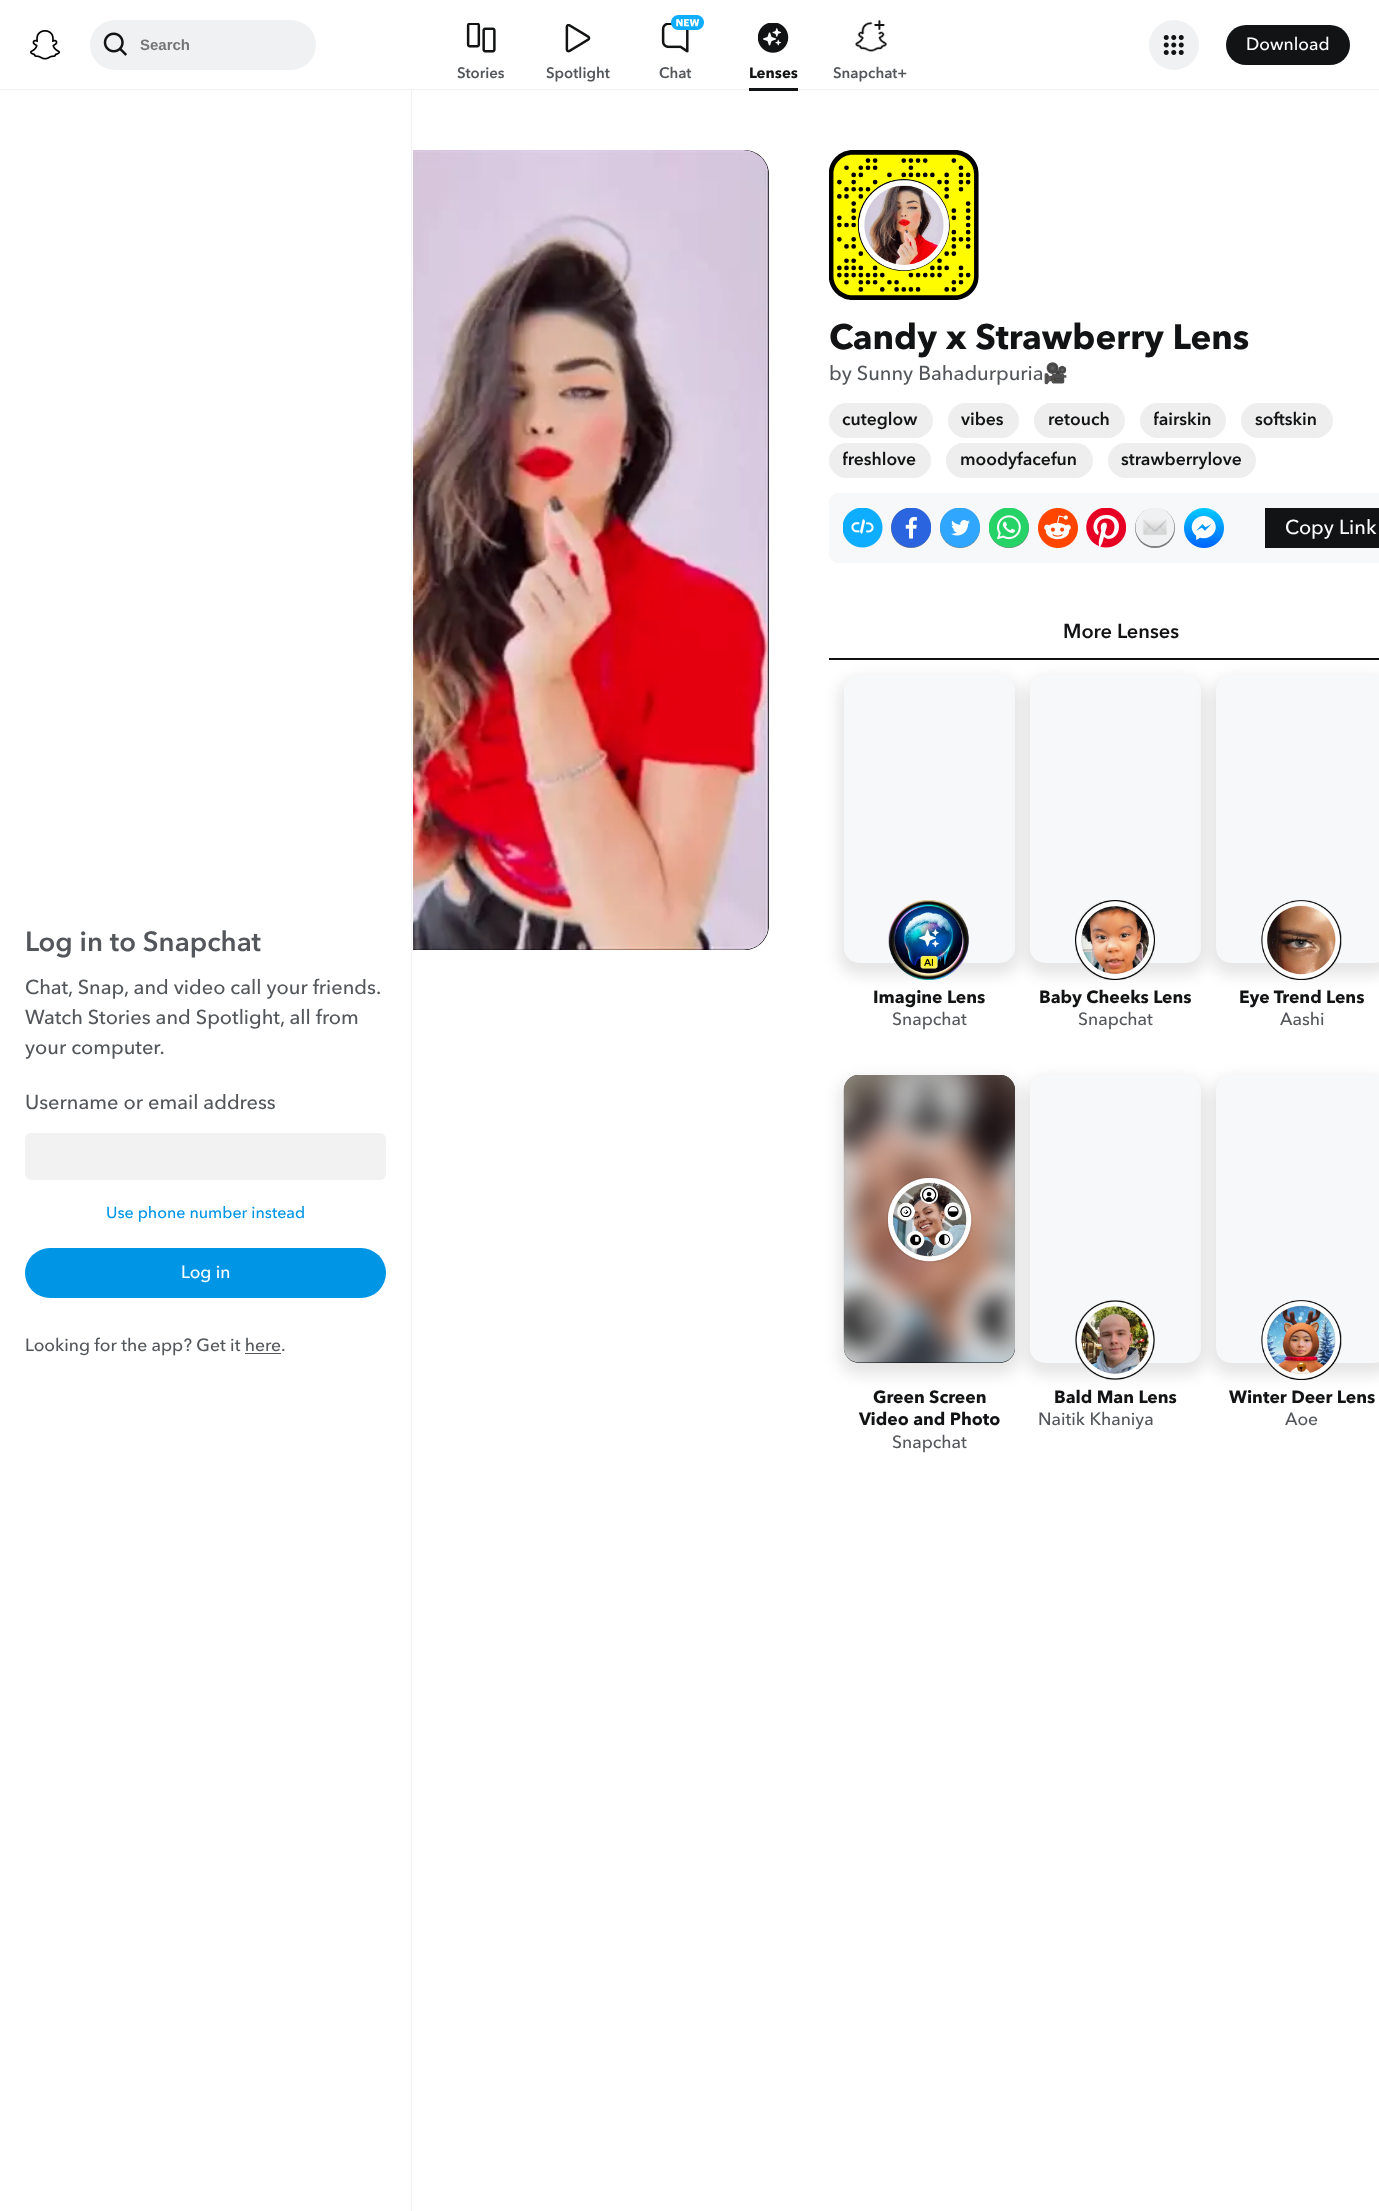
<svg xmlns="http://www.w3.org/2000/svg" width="1379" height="2211">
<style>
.a{font:bold 15px Liberation Sans;fill:#757575}
.b{font:500 17.5px Avenir Next;fill:#fff}
.c{font:600 15px Avenir Next;fill:#53575b}
.d{font:bold 15px Avenir Next;fill:#121314}
.e{font:bold 35px Avenir Next;fill:#121314}
.f{font:500 20px Avenir Next;fill:#53575b}
.g{font:20px Noto Color Emoji;fill:#53575b}
.h{font:600 17.5px Avenir Next;fill:#121314}
.i{font:500 20px Avenir Next;fill:#fff}
.j{font:600 20px Avenir Next;fill:#121314}
.k{font:bold 17.5px Avenir Next;fill:#121314}
.l{font:500 17.5px Avenir Next;fill:#53575b}
.m{font:600 27.5px Avenir Next;fill:#53575b}
.n{font:500 16px Avenir Next;fill:#0096e5}
</style>
<defs>
<clipPath id="clip1"><rect x="1216" y="675" width="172" height="288" rx="15"/></clipPath>
<clipPath id="clip2"><rect x="1216" y="1075" width="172" height="288" rx="15"/></clipPath>
<clipPath id="clip3"><path d="M1154 408h57v25H1154z"/></clipPath>
<clipPath id="clip4"><path d="M843 448h73v25H843z"/></clipPath>
</defs>
<rect width="100%" height="100%" fill="#fff"/>
<path fill="#f0f1f2" d="M0 89h1379v1H0z"/>
<image href="1.png" x="30" y="30" width="30" height="30"/>
<rect fill="#f0f1f2" x="90" y="20" width="226" height="50" rx="25"/>
<image href="2.png" x="103" y="32" width="24" height="24"/>
<circle fill="#f0f1f2" cx="1174" cy="45" r="25"/>
<image href="3.png" x="1163" y="35" width="21" height="20"/>
<rect fill="#121314" x="1226" y="25" width="124" height="40" rx="20"/>
<image href="4.png" x="466" y="23" width="30" height="30"/>
<image href="5.png" x="565" y="24" width="26" height="29"/>
<image href="7.png" x="661" y="23" width="28" height="30"/>
<image href="6.png" x="671" y="15" width="33" height="15"/>
<image href="8.png" x="758" y="23" width="31" height="30"/>
<path fill="#121314" d="M749 88h49v3H749z"/>
<image href="9.png" x="855" y="20" width="33" height="32"/>
<path fill="#000" d="M413 150h331c14 0 25 11 25 25v750c0 14-11 25-25 25h-331z"/>
<image href="10.png" x="413" y="150" width="356" height="800"/>
<image href="11.png" x="829" y="150" width="150" height="150"/>
<rect fill="#eee" x="829" y="403" width="104" height="35" rx="17.5"/>
<rect fill="#eee" x="948" y="403" width="71" height="35" rx="17.5"/>
<rect fill="#eee" x="1034" y="403" width="91" height="35" rx="17.5"/>
<rect fill="#eee" x="1140" y="403" width="86" height="35" rx="17.5"/>
<rect fill="#eee" x="1241" y="403" width="92" height="35" rx="17.5"/>
<rect fill="#eee" x="829" y="443" width="102" height="35" rx="17.5"/>
<rect fill="#eee" x="946" y="443" width="147" height="35" rx="17.5"/>
<rect fill="#eee" x="1108" y="443" width="148" height="35" rx="17.5"/>
<path fill="#f7f8f9" d="M839 493h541v70h-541c-5.5 0-10-4.5-10-10v-50c0-5.5 4.5-10 10-10z"/>
<image href="12.png" x="843" y="508" width="40" height="40"/>
<circle fill="#7c7c7d" cx="911" cy="528" r="20"/>
<image href="13.png" x="891" y="508" width="40" height="40"/>
<circle fill="#7c7c7d" cx="960" cy="528" r="20"/>
<image href="14.png" x="940" y="508" width="40" height="40"/>
<circle fill="#7c7c7d" cx="1009" cy="528" r="20"/>
<image href="15.png" x="989" y="508" width="40" height="40"/>
<image href="16.png" x="1038" y="508" width="40" height="40"/>
<image href="17.png" x="1086" y="508" width="40" height="40"/>
<circle fill="#7c7c7d" cx="1155" cy="528" r="20"/>
<image href="18.png" x="1135" y="508" width="40" height="39"/>
<image href="19.png" x="1184" y="508" width="40" height="40"/>
<path fill="#121314" d="M1265 508h114v40H1265z"/>
<path fill="#0c0d0d" d="M829 658h550v1H829z"/>
<path fill="#121314" d="M829 659h550v1H829z"/>
<path fill="#0c0d0d" d="M829 658h1v2H829z"/>
<rect fill="#0000001a" filter="blur(7.5px)" x="839" y="678" width="181" height="297" rx="20"/>
<rect fill="#f7f8f9" x="844" y="675" width="171" height="288" rx="15"/>
<image href="20.png" x="888" y="900" width="81" height="80"/>
<rect fill="#0000001a" filter="blur(7.5px)" x="1025" y="678" width="181" height="297" rx="20"/>
<rect fill="#f7f8f9" x="1030" y="675" width="171" height="288" rx="15"/>
<image href="21.png" x="1075" y="900" width="80" height="80"/>
<rect fill="#0000001a" filter="blur(7.5px)" x="1211" y="678" width="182" height="297" rx="20"/>
<g clip-path="url(#clip1)">
<path fill="#f7f8f9" d="M1231 675h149v288h-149c-8.5 0-15-6.5-15-15v-258c0-8.5 6.5-15 15-15z"/>
</g>
<image href="22.png" x="1261" y="900" width="81" height="80"/>
<rect fill="#0000001a" filter="blur(7.5px)" x="839" y="1078" width="181" height="297" rx="20"/>
<rect fill="#000" x="844" y="1075" width="171" height="288" rx="15"/>
<image href="23.png" x="843" y="1075" width="172" height="288"/>
<image href="24.png" x="887" y="1177" width="86" height="86"/>
<rect fill="#0000001a" filter="blur(7.5px)" x="1025" y="1078" width="181" height="297" rx="20"/>
<rect fill="#f7f8f9" x="1030" y="1075" width="171" height="288" rx="15"/>
<image href="25.png" x="1075" y="1300" width="80" height="80"/>
<rect fill="#0000001a" filter="blur(7.5px)" x="1211" y="1078" width="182" height="297" rx="20"/>
<g clip-path="url(#clip2)">
<path fill="#f7f8f9" d="M1231 1075h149v288h-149c-8.5 0-15-6.5-15-15v-258c0-8.5 6.5-15 15-15z"/>
</g>
<image href="26.png" x="1261" y="1300" width="81" height="80"/>
<path fill="#f0f1f2" d="M411 90h1v2121H411z"/>
<rect fill="#f2f2f2" x="25" y="1133" width="361" height="47" rx="6"/>
<rect fill="#0096e5" x="25" y="1248" width="361" height="50" rx="25"/>
<path fill="#53575b" d="M245 1353h36v1H245z"/>
<text class="a" x="140" y="50">Search</text>
<text class="b" x="1246" y="50">Download</text>
<text class="c" x="457" y="78">Stories</text>
<text class="c" x="546" y="78">Spotlight</text>
<text class="c" x="659" y="78">Chat</text>
<text class="d" x="749" y="78">Lenses</text>
<text class="c" x="833" y="78">Snapchat+</text>
<text class="e" x="829" y="349">Candy x Strawberry Lens</text>
<text class="f" x="829" y="380">by Sunny Bahadurpuria</text>
<text class="g" x="1043" y="380">🎥</text>
<text class="h" x="842" y="425">cuteglow</text>
<text class="h" x="961" y="425">vibes</text>
<text class="h" x="1048" y="425">retouch</text>
<g clip-path="url(#clip3)">
<text class="h" x="1153" y="425">fairskin</text>
</g>
<text class="h" x="1255" y="425">softskin</text>
<g clip-path="url(#clip4)">
<text class="h" x="842" y="465">freshlove</text>
</g>
<text class="h" x="960" y="465">moodyfacefun</text>
<text class="h" x="1121" y="465">strawberrylove</text>
<text class="i" x="1285" y="534">Copy Link</text>
<text class="j" x="1063" y="638">More Lenses</text>
<text class="k" x="873" y="1003">Imagine Lens</text>
<text class="l" x="892" y="1025">Snapchat</text>
<text class="k" x="1039" y="1003">Baby Cheeks Lens</text>
<text class="l" x="1078" y="1025">Snapchat</text>
<text class="k" x="1239" y="1003">Eye Trend Lens</text>
<text class="l" x="1280" y="1025">Aashi</text>
<text class="k" x="873" y="1403">Green Screen</text>
<text class="k" x="859" y="1425">Video and Photo</text>
<text class="l" x="892" y="1448">Snapchat</text>
<text class="k" x="1054" y="1403">Bald Man Lens</text>
<text class="l" x="1038" y="1425"> Naitik Khaniya </text>
<text class="k" x="1229" y="1403">Winter Deer Lens</text>
<text class="l" x="1285" y="1425">Aoe</text>
<text class="m" x="25" y="951">Log in to Snapchat</text>
<text class="f" x="25" y="994">Chat, Snap, and video call your friends.</text>
<text class="f" x="25" y="1024">Watch Stories and Spotlight, all from</text>
<text class="f" x="25" y="1054">your computer.</text>
<text class="f" x="25" y="1109">Username or email address</text>
<text class="n" x="106" y="1218">Use phone number instead</text>
<text class="b" x="181" y="1278">Log in</text>
<text class="l" x="25" y="1351">Looking for the app? Get it here.</text>
</svg>
